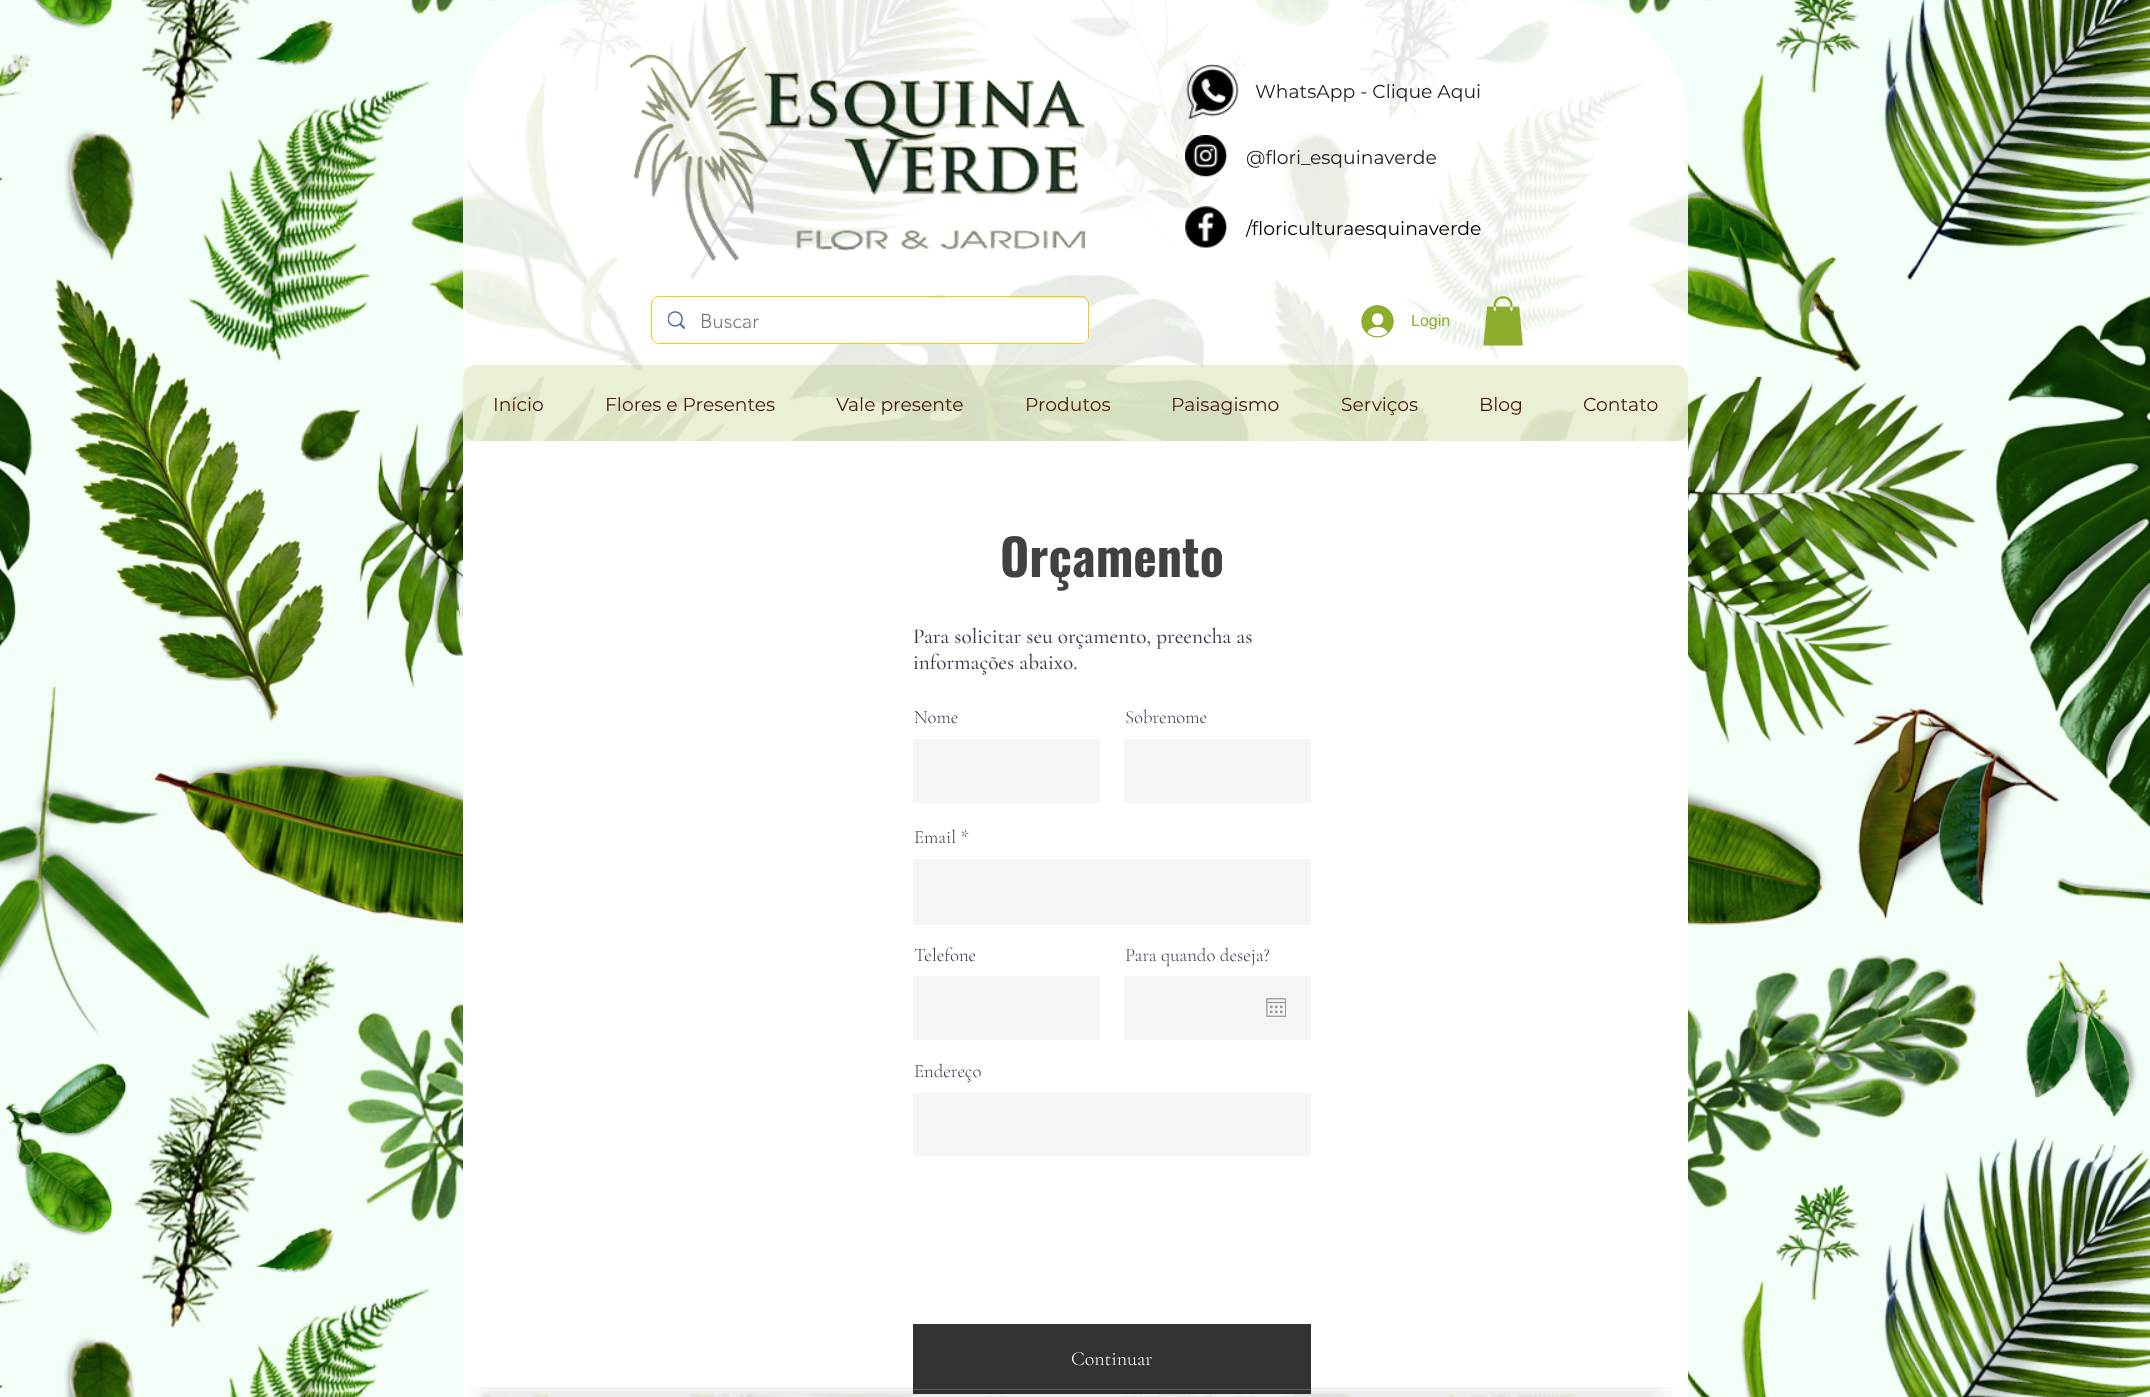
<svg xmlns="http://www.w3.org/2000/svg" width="2150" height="1397">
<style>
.a{font:18.75px Montserrat;fill:#221b23}
.b{font:18.75px Montserrat;fill:#000}
.c{font:300 20px 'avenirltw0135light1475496';fill:#787878}
.d{font:16px Liberation Sans;fill:#8dad2d}
.e{font:18.75px Montserrat;fill:#4a1905}
.f{font:bold 50px Oswald;fill:#414141}
.g{font:500 21.25px Cormorant Garamond;fill:#373b4d}
.h{font:300 18.75px Cormorant Garamond;fill:#373b4d}
.i{font:300 20px Cormorant Garamond;fill:#fff}
</style>
<rect width="100%" height="100%" fill="#f1fff6"/>
<image href="1.png" x="0" y="0" width="2150" height="1397"/>
<path fill="#ffffffe6" d="M588 0h975c69 0 125 56 125 125v316h-1225v-316c0-69 56-125 125-125z"/>
<image href="2.png" x="629" y="46" width="457" height="215"/>
<image href="3.png" x="1186" y="64" width="53" height="56"/>
<image href="4.png" x="1185" y="135" width="42" height="42"/>
<image href="5.png" x="1185" y="206" width="42" height="42"/>
<rect fill="none" stroke="#ffc802" x="651.5" y="296.5" width="437" height="47" rx="7.5"/>
<rect fill="#fff" x="653" y="298" width="435" height="45" rx="6"/>
<image href="6.png" x="668" y="311" width="17" height="18"/>
<image href="7.png" x="1361" y="305" width="33" height="33"/>
<image href="8.png" x="1483" y="296" width="40" height="50"/>
<rect fill="#8dad2d30" x="463" y="365" width="1225" height="76" rx="13"/>
<path fill="#fff" d="M463 441h1225v953H463z"/>
<path fill="#f5f5f5" d="M913 739h187v64H913z"/>
<path fill="#f5f5f5" d="M1124 739h187v64H1124z"/>
<path fill="#f5f5f5" d="M913 859h398v66H913z"/>
<path fill="#f5f5f5" d="M913 976h187v64H913z"/>
<path fill="#f5f5f5" d="M1124 976h187v64H1124z"/>
<image href="9.png" x="1266" y="998" width="20" height="19"/>
<path fill="#f5f5f5" d="M913 1093h398v63H913z"/>
<path fill="#323232" d="M913 1324h398v70H913z"/>
<path fill="#ffffffed" d="M463 1394h1225v3H463z"/>
<image href="11.png" x="496" y="1387" width="1151" height="10"/>
<image href="10.png" x="468" y="1387" width="29" height="10"/>
<image href="12.png" x="1646" y="1387" width="28" height="10"/>
<text class="a" x="1255" y="98">WhatsApp - Clique Aqui</text>
<text class="a" x="1246" y="164">@flori_esquinaverde</text>
<text class="b" x="1246" y="235">/floriculturaesquinaverde</text>
<text class="c" x="700" y="328">Buscar</text>
<text class="d" x="1411" y="326">Login</text>
<text class="e" x="493" y="411">Início</text>
<text class="e" x="605" y="411">Flores e Presentes</text>
<text class="e" x="836" y="411">Vale presente</text>
<text class="e" x="1025" y="411">Produtos</text>
<text class="e" x="1171" y="411">Paisagismo</text>
<text class="e" x="1341" y="411">Serviços</text>
<text class="e" x="1479" y="411">Blog</text>
<text class="e" x="1583" y="411">Contato</text>
<text class="f" x="1000" y="577">Orçamento</text>
<text class="g" x="913" y="643">Para solicitar seu orçamento, preencha as</text>
<text class="g" x="913" y="669">informações abaixo.</text>
<text class="h" x="914" y="723">Nome</text>
<text class="h" x="1125" y="723">Sobrenome</text>
<text class="h" x="914" y="843">Email *</text>
<text class="h" x="914" y="961">Telefone</text>
<text class="h" x="1125" y="961">Para quando deseja?</text>
<text class="h" x="914" y="1077">Endereço</text>
<text class="i" x="1071" y="1365">Continuar</text>
</svg>
